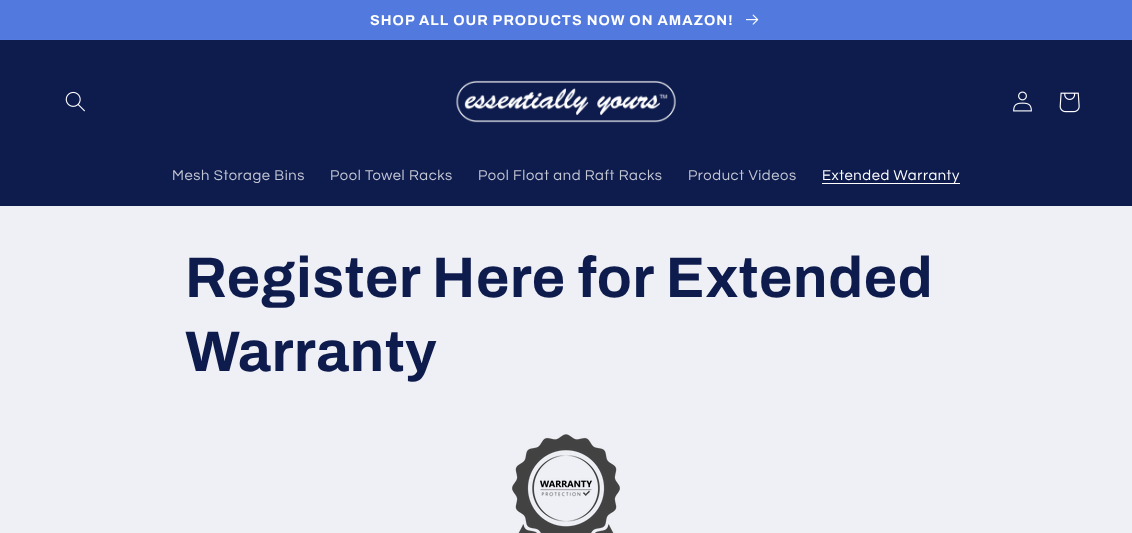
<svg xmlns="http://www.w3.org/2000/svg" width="1132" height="533">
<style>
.a{font:bold 14.3px Archivo;letter-spacing:1.05px;fill:#fff}
.b{font:14.75px Questrial;letter-spacing:0.6px;fill:#c3c6d3}
.c{font:14.75px Questrial;letter-spacing:0.6px;fill:#fff}
.d{font:bold 57.25px Archivo;letter-spacing:0.65px;fill:#0e1b4d}
</style>
<rect width="100%" height="100%" fill="#eff0f5"/>
<path fill="#567bde" d="M0 39h1132v1H0z"/>
<path fill="#5279dd" d="M0 0h1132v39H0z"/>
<image href="1.png" x="746" y="14" width="13" height="11"/>
<path fill="#0e1b4d" d="M0 40h1132v166H0z"/>
<image href="2.png" x="65" y="91" width="20" height="21"/>
<image href="3.png" x="456" y="80" width="220" height="43"/>
<image href="4.png" x="1013" y="91" width="19" height="21"/>
<image href="5.png" x="1059" y="92" width="21" height="21"/>
<path fill="#fff" d="M822 183h138v1H822z"/>
<image href="6.png" x="512" y="434" width="108" height="99"/>
<text class="a" x="370" y="25">SHOP ALL OUR PRODUCTS NOW ON AMAZON!</text>
<text class="b" x="172" y="180">Mesh Storage Bins</text>
<text class="b" x="330" y="180">Pool Towel Racks</text>
<text class="b" x="478" y="180">Pool Float and Raft Racks</text>
<text class="b" x="688" y="180">Product Videos</text>
<text class="c" x="822" y="180">Extended Warranty</text>
<text class="d" x="185" y="297">Register Here for Extended</text>
<text class="d" x="185" y="371">Warranty</text>
</svg>
